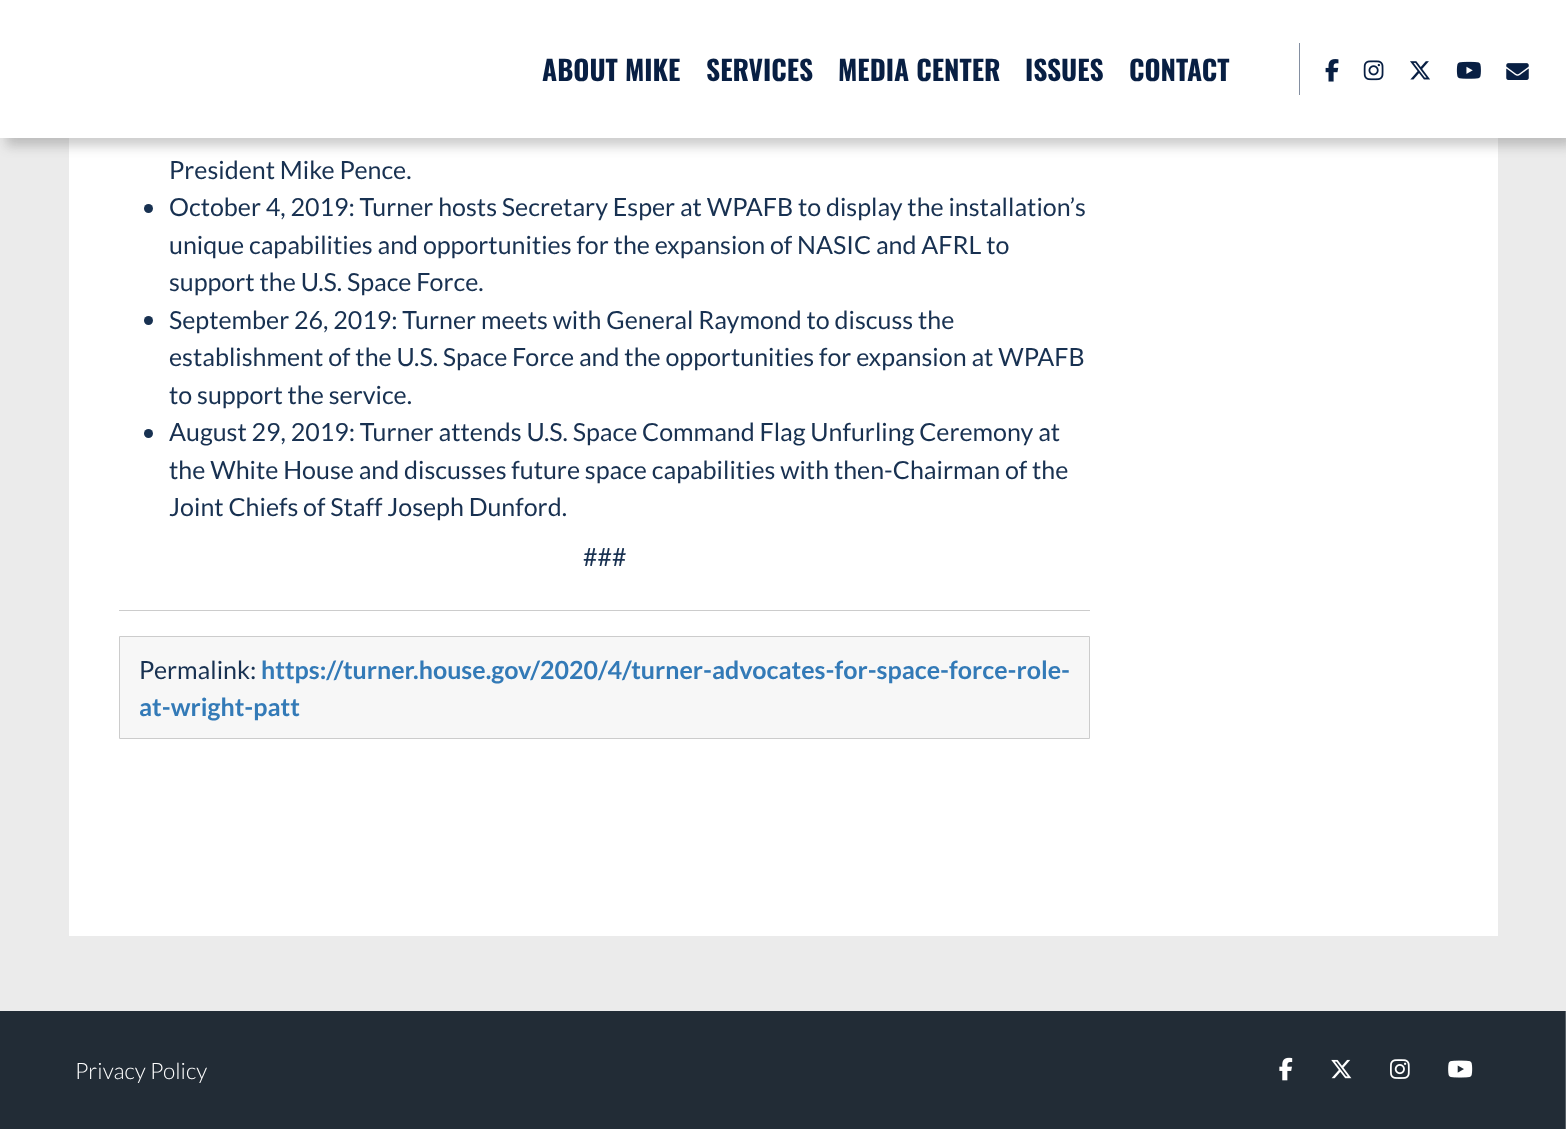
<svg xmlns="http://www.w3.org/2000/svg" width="1566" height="1129">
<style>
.a{font:bold 27.5px Oswald;fill:#081f43}
.b{font:25px Lato;fill:#183151}
.c{font:bold 25px Lato;fill:#337ab7}
.d{font:300 22.5px Lato;fill:#fff}
</style>
<rect width="100%" height="100%" fill="#ebebeb"/>
<path fill="#fff" d="M69 138h1429v798H69z"/>
<path fill="#33333340" filter="blur(6px)" d="M6 9h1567v137H6z"/>
<path fill="#fff" d="M0 0h1566v138H0z"/>
<path fill="#848fa1" d="M1299 43h1v52H1299z"/>
<image href="1.png" x="1325" y="59" width="14" height="23"/>
<image href="2.png" x="1363" y="60" width="21" height="21"/>
<image href="3.png" x="1410" y="61" width="20" height="19"/>
<image href="4.png" x="1456" y="61" width="25" height="18"/>
<image href="5.png" x="1506" y="63" width="23" height="17"/>
<circle fill="#183151" cx="148.5" cy="208.5" r="4.5"/>
<circle fill="#183151" cx="148.5" cy="320.5" r="4.5"/>
<circle fill="#183151" cx="148.5" cy="433.5" r="4.5"/>
<path fill="#ccc" d="M119 610h971v1H119z"/>
<path fill="#f7f7f7" stroke="#ccc" d="M119.5 636.5h970v102H119.5z"/>
<path fill="#222c36" d="M0 1011h1565v118H0z"/>
<path fill="#596168" d="M1565 1011h1v118H1565z"/>
<image href="6.png" x="1279" y="1057" width="14" height="24"/>
<image href="7.png" x="1331" y="1059" width="21" height="20"/>
<image href="8.png" x="1390" y="1059" width="20" height="20"/>
<image href="9.png" x="1448" y="1060" width="25" height="18"/>
<text class="a" x="542" y="81">ABOUT MIKE</text>
<text class="a" x="706" y="81">SERVICES</text>
<text class="a" x="838" y="81">MEDIA CENTER</text>
<text class="a" x="1025" y="81">ISSUES</text>
<text class="a" x="1129" y="81">CONTACT</text>
<text class="b" x="169" y="179">President Mike Pence.</text>
<text class="b" x="169" y="216">October 4, 2019: Turner hosts Secretary Esper at WPAFB to display the installation’s</text>
<text class="b" x="169" y="254">unique capabilities and opportunities for the expansion of NASIC and AFRL to</text>
<text class="b" x="169" y="291">support the U.S. Space Force.</text>
<text class="b" x="169" y="329">September 26, 2019: Turner meets with General Raymond to discuss the</text>
<text class="b" x="169" y="366">establishment of the U.S. Space Force and the opportunities for expansion at WPAFB</text>
<text class="b" x="169" y="404">to support the service.</text>
<text class="b" x="169" y="441">August 29, 2019: Turner attends U.S. Space Command Flag Unfurling Ceremony at</text>
<text class="b" x="169" y="479">the White House and discusses future space capabilities with then-Chairman of the</text>
<text class="b" x="169" y="516">Joint Chiefs of Staff Joseph Dunford.</text>
<text class="b" x="583" y="566">###</text>
<text class="b" x="139" y="679">Permalink:</text>
<text class="c" x="261" y="679">https://turner.house.gov/2020/4/turner-advocates-for-space-force-role-</text>
<text class="c" x="139" y="716">at-wright-patt</text>
<text class="d" x="75" y="1079">Privacy Policy</text>
</svg>
